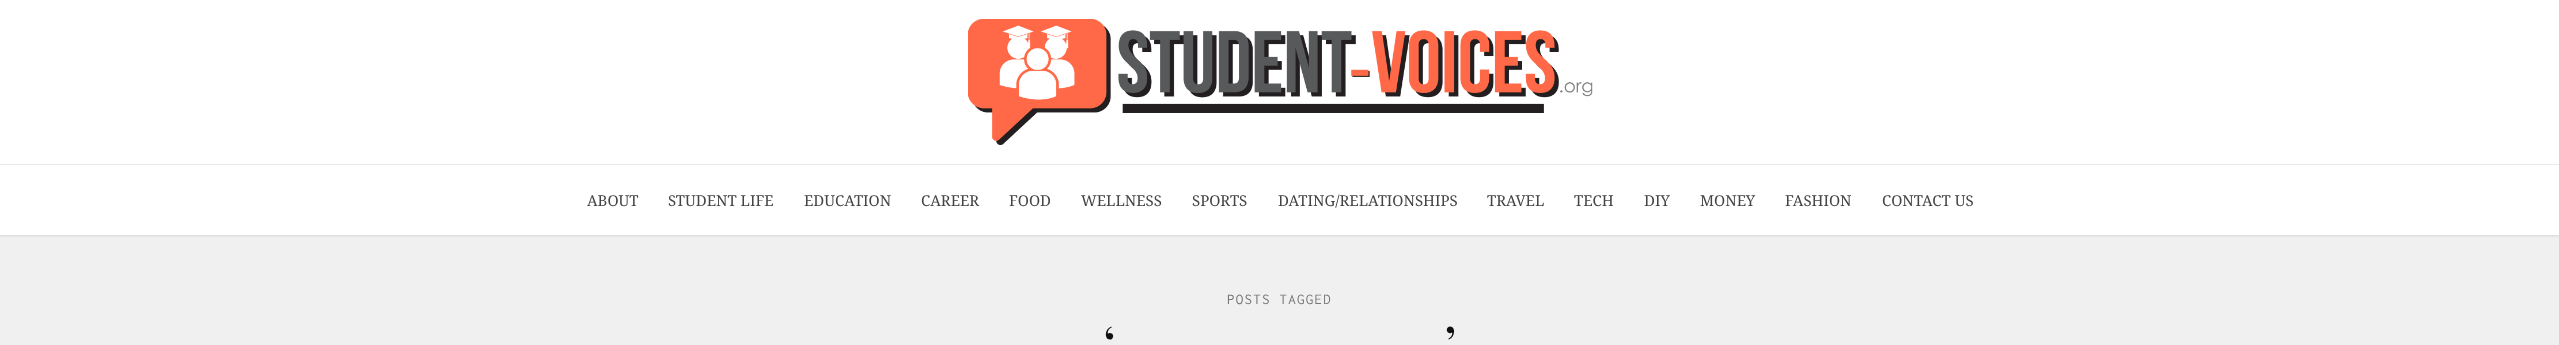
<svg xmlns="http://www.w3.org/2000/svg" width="2559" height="345">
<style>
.a{font:15px Noto Serif;fill:#444}
.b{font:15px Inconsolata;letter-spacing:1.25px;fill:#777}
.c{font:52px Playfair Display;fill:#101010}
</style>
<rect width="100%" height="100%" fill="#f0f0f0"/>
<path fill="#0000001a" filter="blur(1px)" d="M0 1h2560v235H0z"/>
<path fill="#fff" d="M0 0h2559v235H0z"/>
<path fill="#eaeaea" d="M0 164h2559v1H0z"/>
<image href="1.png" x="968" y="19" width="625" height="126"/>
<text class="a" x="587" y="206">ABOUT</text>
<text class="a" x="668" y="206">STUDENT LIFE</text>
<text class="a" x="804" y="206">EDUCATION</text>
<text class="a" x="921" y="206">CAREER</text>
<text class="a" x="1009" y="206">FOOD</text>
<text class="a" x="1081" y="206">WELLNESS</text>
<text class="a" x="1192" y="206">SPORTS</text>
<text class="a" x="1278" y="206">DATING/RELATIONSHIPS</text>
<text class="a" x="1487" y="206">TRAVEL</text>
<text class="a" x="1574" y="206">TECH</text>
<text class="a" x="1644" y="206">DIY</text>
<text class="a" x="1700" y="206">MONEY</text>
<text class="a" x="1785" y="206">FASHION</text>
<text class="a" x="1882" y="206">CONTACT US</text>
<text class="b" x="1227" y="304">POSTS TAGGED</text>
<text class="c" x="1103" y="364">‘</text>
<text class="c" x="1444" y="364">’</text>
</svg>
